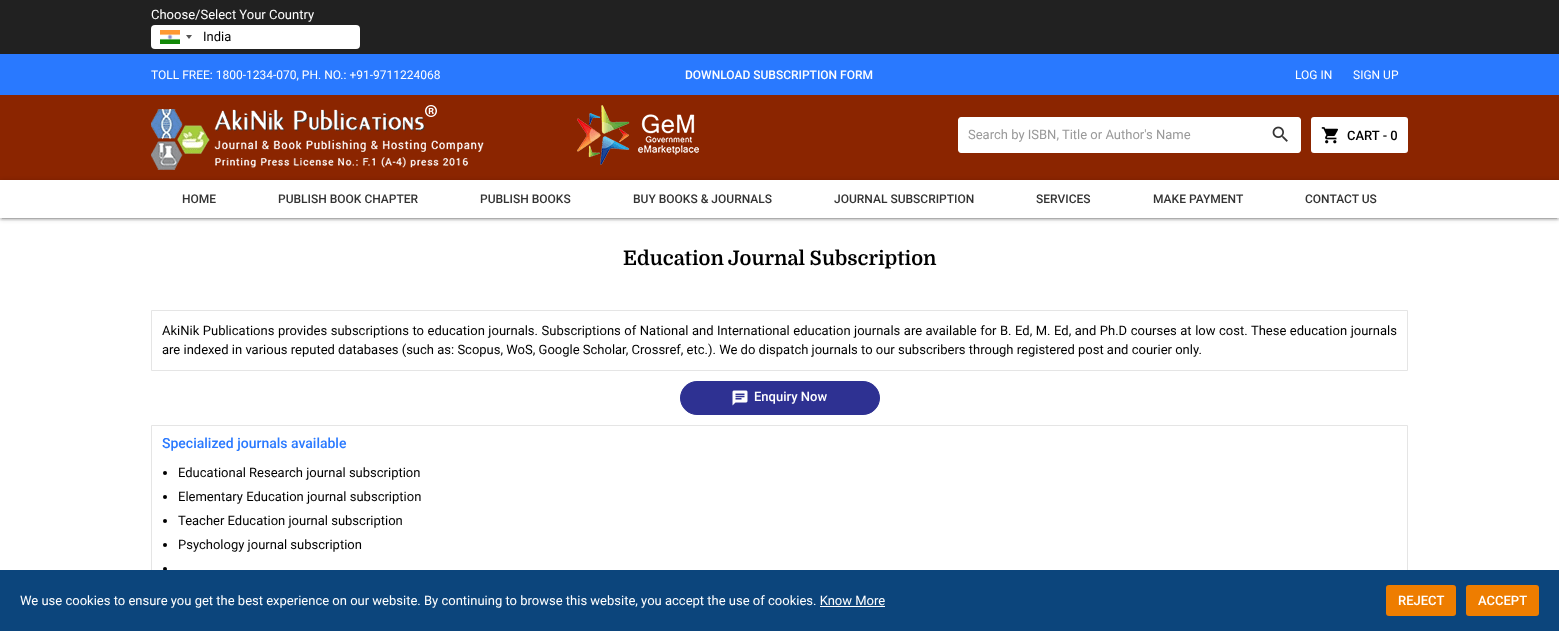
<svg xmlns="http://www.w3.org/2000/svg" width="1559" height="631">
<style>
.a{font:13px Roboto;fill:#fff}
.b{font:13px Roboto;fill:#000}
.c{font:12px Roboto;fill:#fff}
.d{font:500 12px Roboto;fill:#fff}
.e{font:13px Roboto;fill:#999}
.f{font:500 13px Roboto;fill:#000}
.g{font:500 12px Roboto;fill:#333}
.h{font:bold 20px Domine;fill:#000}
.i{font:500 13px Roboto;fill:#fff}
.j{font:500 14px Roboto;fill:#2979ff}
</style>
<defs>
<clipPath id="clip1"><path d="M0 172h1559v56h-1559zm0 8h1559v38h-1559z" clip-rule="evenodd"/></clipPath>
<clipPath id="clip2"><path d="M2 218h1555v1H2z"/></clipPath>
<clipPath id="clip3"><path d="M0 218h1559v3H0z"/></clipPath>
</defs>
<rect width="100%" height="100%" fill="#fff"/>
<path fill="#212121" d="M0 0h1559v54H0z"/>
<rect fill="#fff" x="151" y="25" width="209" height="24" rx="4"/>
<path fill="#888" filter="blur(0.5px)" d="M160 30h20v14H160z"/>
<image href="1.png" x="160" y="30" width="20" height="14"/>
<path fill="#555" d="M186 35h6l-3 4z"/>
<path fill="#2979ff" d="M0 54h1559v41H0z"/>
<path fill="#8b2500" d="M0 95h1559v85H0z"/>
<image href="2.png" x="151" y="105" width="333" height="65"/>
<image href="3.png" x="577" y="105" width="122" height="60"/>
<path fill="#fff" d="M961 117h300v36h-300c-1.5 0-3-1.5-3-3v-30c0-1.5 1.5-3 3-3z"/>
<path fill="#fff" d="M1261 117h37c1.5 0 3 1.5 3 3v30c0 1.5-1.5 3-3 3h-37z"/>
<image href="4.png" x="1272" y="126" width="16" height="16"/>
<rect fill="#fff" x="1311" y="117" width="97" height="36" rx="3"/>
<image href="5.png" x="1321" y="127" width="17" height="17"/>
<g clip-path="url(#clip1)">
<path fill="#00000033" filter="blur(2.5px)" d="M0 181h1559v38H0z"/>
</g>
<g clip-path="url(#clip2)">
<path fill="#0000001f" filter="blur(0.5px)" d="M2 185h1555v34H2z"/>
</g>
<g clip-path="url(#clip3)">
<path fill="#00000024" filter="blur(1px)" d="M0 182h1559v38H0z"/>
</g>
<path fill="none" stroke="#e5e5e5" d="M151.5 310.5h1256v60H151.5z"/>
<rect fill="#2e3192" stroke="#2e3192" x="680.5" y="381.5" width="199" height="33" rx="16.5"/>
<image href="6.png" x="732" y="390" width="16" height="16"/>
<path fill="none" stroke="#e5e5e5" d="M151.5 425.5h1256v190H151.5z"/>
<circle fill="#000" cx="165" cy="473" r="2"/>
<circle fill="#000" cx="165" cy="497" r="2"/>
<circle fill="#000" cx="165" cy="521" r="2"/>
<circle fill="#000" cx="165" cy="545" r="2"/>
<circle fill="#000" cx="165" cy="569" r="2"/>
<path fill="#0c457c" d="M0 570h1559v61H0z"/>
<path fill="#fff" d="M820 606h65v1H820z"/>
<rect fill="#ee7d00" x="1386" y="585" width="70" height="31" rx="3"/>
<rect fill="#ee7d00" x="1466" y="585" width="73" height="31" rx="3"/>
<text class="a" x="151" y="19">Choose/Select Your Country</text>
<text class="b" x="203" y="41">India</text>
<text class="c" x="151" y="79">TOLL FREE: 1800-1234-070, PH. NO.: +91-9711224068</text>
<text class="d" x="685" y="79">DOWNLOAD SUBSCRIPTION FORM</text>
<text class="c" x="1295" y="79">LOG IN</text>
<text class="c" x="1353" y="79">SIGN UP</text>
<text class="e" x="968" y="139">Search by ISBN, Title or Author's Name</text>
<text class="f" x="1347" y="140">CART - 0</text>
<text class="g" x="182" y="203">HOME</text>
<text class="g" x="278" y="203">PUBLISH BOOK CHAPTER</text>
<text class="g" x="480" y="203">PUBLISH BOOKS</text>
<text class="g" x="633" y="203">BUY BOOKS &amp; JOURNALS</text>
<text class="g" x="834" y="203">JOURNAL SUBSCRIPTION</text>
<text class="g" x="1036" y="203">SERVICES</text>
<text class="g" x="1153" y="203">MAKE PAYMENT</text>
<text class="g" x="1305" y="203">CONTACT US</text>
<text class="h" x="623" y="265">Education Journal Subscription</text>
<text class="b" x="162" y="335" word-spacing="0.3">AkiNik Publications provides subscriptions to education journals. Subscriptions of National and International education journals are available for B. Ed, M. Ed, and Ph.D courses at low cost. These education journals</text>
<text class="b" x="162" y="354">are indexed in various reputed databases (such as: Scopus, WoS, Google Scholar, Crossref, etc.). We do dispatch journals to our subscribers through registered post and courier only.</text>
<text class="i" x="754" y="401">Enquiry Now</text>
<text class="j" x="162" y="448">Specialized journals available</text>
<text class="b" x="178" y="477">Educational Research journal subscription</text>
<text class="b" x="178" y="501">Elementary Education journal subscription</text>
<text class="b" x="178" y="525">Teacher Education journal subscription</text>
<text class="b" x="178" y="549">Psychology journal subscription</text>
<text class="a" x="20" y="605">We use cookies to ensure you get the best experience on our website. By continuing to browse this website, you accept the use of cookies. Know More</text>
<text class="i" x="1398" y="605">REJECT</text>
<text class="i" x="1478" y="605">ACCEPT</text>
</svg>
